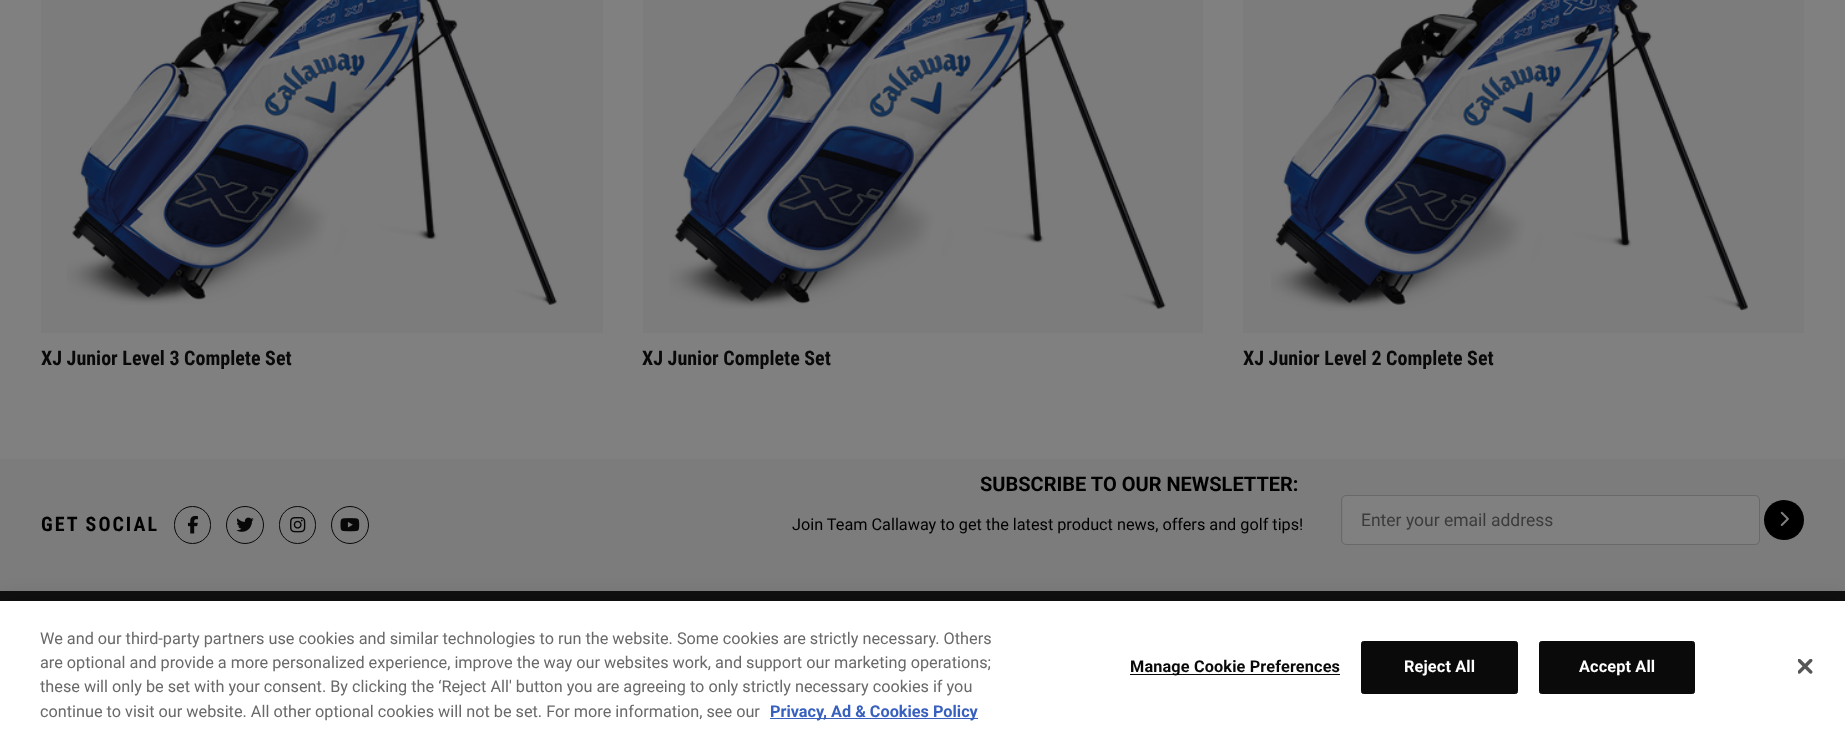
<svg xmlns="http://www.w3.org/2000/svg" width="1845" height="736">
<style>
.a{font:bold 20px Roboto Condensed;fill:#090909}
.b{font:bold 20px Roboto Condensed;letter-spacing:2px;fill:#000}
.c{font:bold 20px Roboto;fill:#000}
.d{font:16.25px Roboto;fill:#000}
.e{font:17.5px Roboto;fill:#3b3b3b}
.f{font:16.25px Roboto;fill:#696969}
.g{font:bold 16.25px Roboto;fill:#3860be}
.h{font:bold 16.25px Roboto;letter-spacing:0.15px;fill:#090909}
.i{font:bold 16.25px Roboto;letter-spacing:0.15px;fill:#fff}
</style>
<rect width="100%" height="100%" fill="#808080"/>
<path fill="#7c7c7c" d="M41 0h562v333H41z"/>
<image href="1.png" x="67" y="0" width="490" height="305"/>
<path fill="#7c7c7c" d="M643 0h560v333H643z"/>
<image href="2.png" x="669" y="0" width="497" height="309"/>
<path fill="#7c7c7c" d="M1243 0h561v333H1243z"/>
<image href="3.png" x="1271" y="0" width="477" height="311"/>
<path fill="#7c7c7c" d="M0 459h1845v132H0z"/>
<rect fill="none" stroke="#090909" x="174.5" y="506.5" width="36" height="37" rx="18"/>
<image href="4.png" x="187" y="515" width="11" height="19"/>
<circle fill="none" stroke="#090909" cx="245" cy="525" r="18.5"/>
<image href="5.png" x="236" y="517" width="18" height="15"/>
<rect fill="none" stroke="#090909" x="279.5" y="506.5" width="36" height="37" rx="18"/>
<image href="6.png" x="290" y="517" width="16" height="16"/>
<circle fill="none" stroke="#090909" cx="350" cy="525" r="18.5"/>
<image href="7.png" x="340" y="518" width="20" height="14"/>
<rect fill="#808080" x="1343" y="496" width="416" height="48" rx="4"/>
<rect fill="none" stroke="#696969" x="1341.5" y="495.5" width="418" height="49" rx="4.5"/>
<circle fill="#000" cx="1784" cy="520" r="20"/>
<image href="8.png" x="1780" y="511" width="9" height="15"/>
<path fill="#101010" d="M0 591h1845v10H0z"/>
<path fill="#00000033" filter="blur(11px)" d="M0 601h1845v135H0z"/>
<path fill="#fff" d="M0 601h1845v135H0z"/>
<path fill="#3860be" d="M770 718h208v1H770z"/>
<path fill="#0a0a0a" d="M1130 674h210v1H1130z"/>
<rect fill="#0a0a0a" stroke="#0a0a0a" x="1361.5" y="641.5" width="156" height="52" rx="2"/>
<rect fill="#0a0a0a" stroke="#0a0a0a" x="1539.5" y="641.5" width="155" height="52" rx="2"/>
<image href="9.png" x="1798" y="659" width="15" height="15"/>
<text class="a" x="41" y="365">XJ Junior Level 3 Complete Set</text>
<text class="a" x="642" y="365">XJ Junior Complete Set</text>
<text class="a" x="1243" y="365">XJ Junior Level 2 Complete Set</text>
<text class="b" x="41" y="531">GET SOCIAL</text>
<text class="c" x="980" y="491">SUBSCRIBE TO OUR NEWSLETTER:</text>
<text class="d" x="792" y="530">Join Team Callaway to get the latest product news, offers and golf tips!</text>
<text class="e" x="1361" y="526">Enter your email address</text>
<text class="f" x="40" y="644">We and our third-party partners use cookies and similar technologies to run the website. Some cookies are strictly necessary. Others</text>
<text class="f" x="40" y="668">are optional and provide a more personalized experience, improve the way our websites work, and support our marketing operations;</text>
<text class="f" x="40" y="692">these will only be set with your consent. By clicking the ‘Reject All' button you are agreeing to only strictly necessary cookies if you</text>
<text class="f" x="40" y="717">continue to visit our website. All other optional cookies will not be set. For more information, see our</text>
<text class="g" x="770" y="717">Privacy, Ad &amp; Cookies Policy</text>
<text class="h" x="1130" y="672">Manage Cookie Preferences</text>
<text class="i" x="1404" y="672">Reject All</text>
<text class="i" x="1579" y="672">Accept All</text>
</svg>
